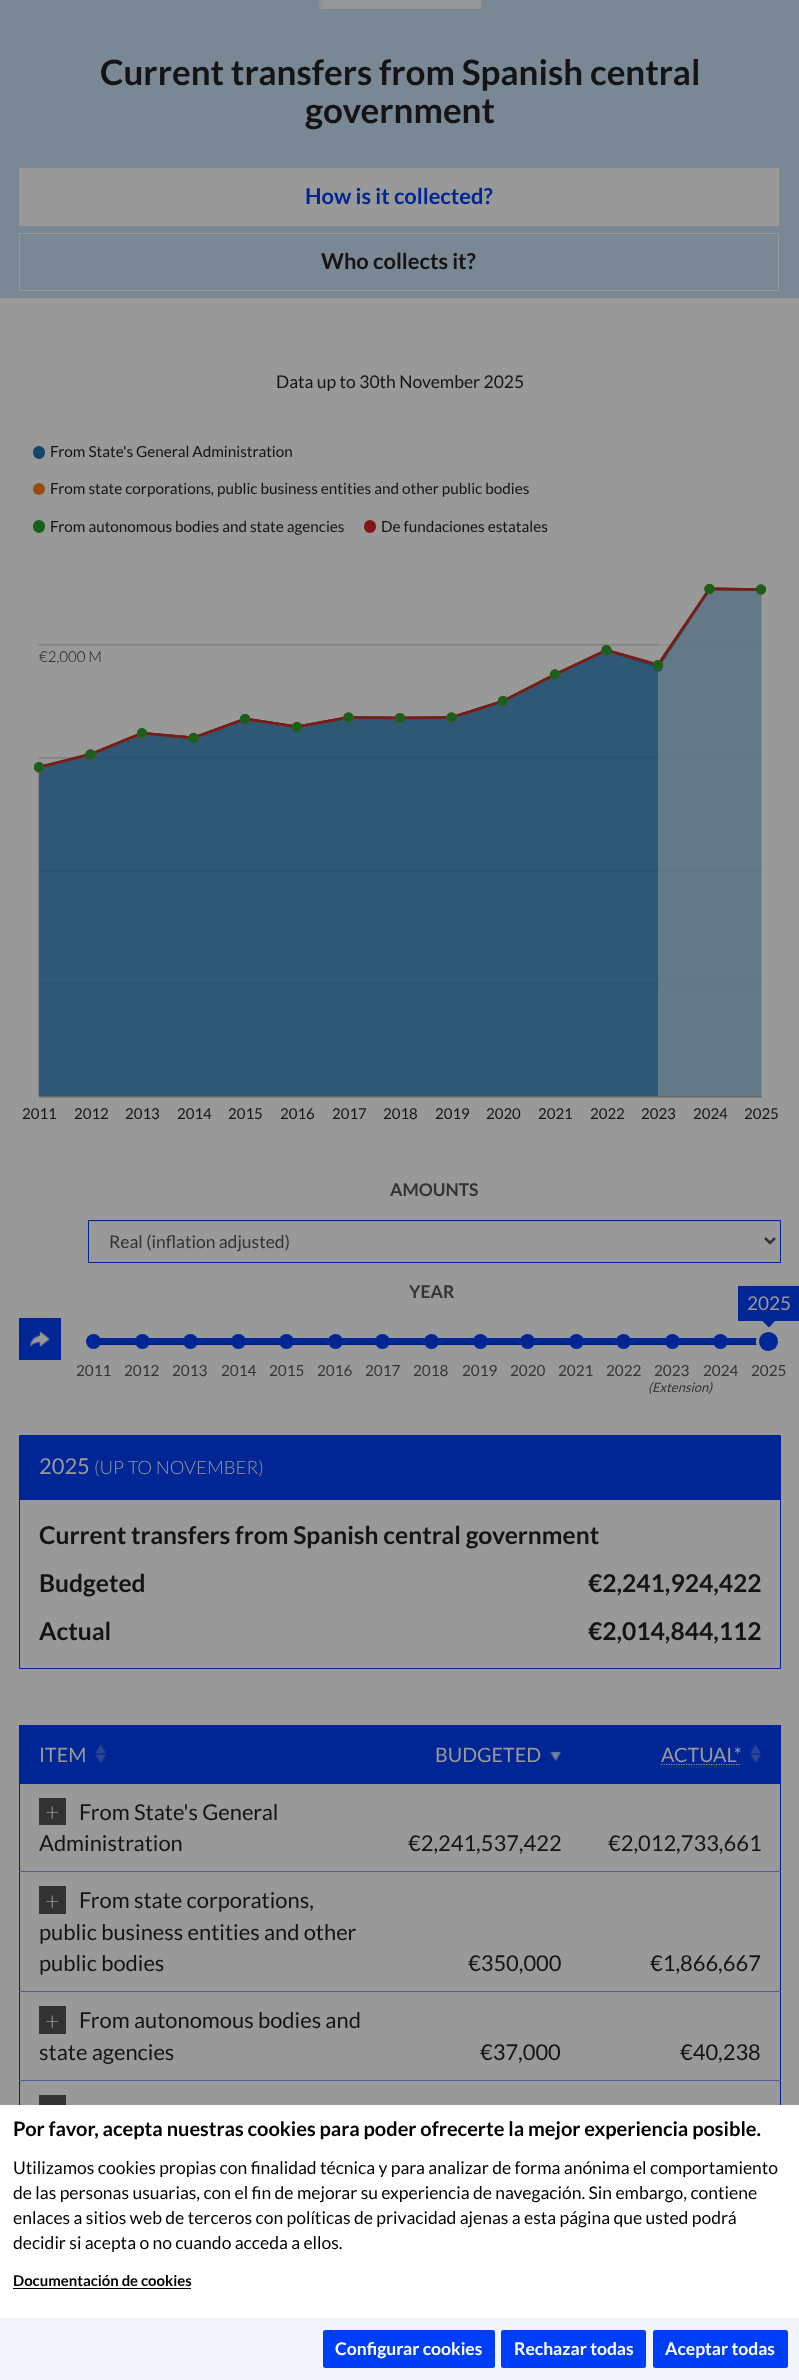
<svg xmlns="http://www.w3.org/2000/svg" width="799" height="2380">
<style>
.a{font:bold 35px Lato;fill:#141414}
.b{font:bold 21.9px Lato;fill:#002594}
.c{font:bold 21.9px Lato;fill:#141414}
.d{font:17.5px Lato;fill:#141414}
.e{font:15.3px Lato;fill:#141414}
.f{font:300 15px Lato;fill:#141414}
.g{font:15px Lato;fill:#141414}
.h{font:bold 17.5px Lato;fill:#333}
.i{font:17.5px Lato;fill:#333}
.j{font:19px Lato;fill:#999}
.k{font:15.3px Lato;fill:#333}
.l{font:italic 13px Lato;fill:#333}
.m{font:21.9px Lato;fill:#999}
.n{font:300 18.5px Lato;fill:#999}
.o{font:bold 24.6px Lato;fill:#141414}
.p{font:19.75px Lato;fill:#999}
.q{font:300 25px Lato;fill:#999}
.r{font:21.9px Lato;fill:#141414}
.s{font:bold 20px Lato;fill:#000}
.t{font:17.5px Lato;fill:#000}
.u{font:bold 14.9px Lato;fill:#000}
.v{font:bold 17.5px Lato;fill:#fff}
</style>
<rect width="100%" height="100%" fill="#999"/>
<path fill="#7a8895" d="M0 0h799v298H0z"/>
<path fill="#969798" d="M322 0h159v9H322z"/>
<path fill="#8b9197" d="M319 0h3v9H319z"/>
<path fill="#999" d="M19 168h760v58H19z"/>
<path fill="none" stroke="#999" d="M19.5 233.5h759v57H19.5z"/>
<rect fill="#13476c" stroke="#13476c" stroke-width="3" x="34.5" y="447.5" width="9" height="10" rx="4.5"/>
<circle fill="#994c08" stroke="#994c08" stroke-width="3" cx="39" cy="489" r="4.5"/>
<rect fill="#1a601a" stroke="#1a601a" stroke-width="3" x="34.5" y="521.5" width="9" height="10" rx="4.5"/>
<rect fill="#801718" stroke="#801718" stroke-width="3" x="365.5" y="521.5" width="9" height="10" rx="4.5"/>
<image href="1.png" x="34" y="584" width="732" height="514"/>
<path fill="#8e8e8e" d="M89 1221h691v1H89z"/>
<path fill="none" stroke="#002594" d="M88.5 1220.5h692v42H88.5z"/>
<path fill="none" stroke="#333" stroke-width="2.5" d="M765 1238l5 5l5-5"/>
<path fill="#002594" d="M19 1318h42v42H19z"/>
<image href="2.png" x="30" y="1330" width="20" height="17"/>
<path fill="#002594" d="M738 1286h61v35H738z"/>
<path fill="#002594" d="M762.5 1321h12.5l-6 6.5z"/>
<path fill="#002594" d="M94 1338h663v6H94z"/>
<path fill="#001f7d" d="M94 1344h663v1H94z"/>
<circle fill="#002594" cx="93.5" cy="1341.5" r="7.5"/>
<circle fill="#002594" cx="142.5" cy="1341.5" r="7.5"/>
<circle fill="#002594" cx="190.5" cy="1341.5" r="7.5"/>
<circle fill="#002594" cx="238.5" cy="1341.5" r="7.5"/>
<circle fill="#002594" cx="286.5" cy="1341.5" r="7.5"/>
<circle fill="#002594" cx="335.5" cy="1341.5" r="7.5"/>
<circle fill="#002594" cx="382.5" cy="1341.5" r="7.5"/>
<circle fill="#002594" cx="431.5" cy="1341.5" r="7.5"/>
<circle fill="#002594" cx="480.5" cy="1341.5" r="7.5"/>
<circle fill="#002594" cx="527.5" cy="1341.5" r="7.5"/>
<circle fill="#002594" cx="576.5" cy="1341.5" r="7.5"/>
<circle fill="#002594" cx="623.5" cy="1341.5" r="7.5"/>
<circle fill="#002594" cx="672.5" cy="1341.5" r="7.5"/>
<circle fill="#002594" cx="720.5" cy="1341.5" r="7.5"/>
<circle fill="#002594" stroke="#999" stroke-width="3" cx="768.5" cy="1341.5" r="11"/>
<path fill="none" stroke="#002594" d="M19.5 1435.5h761v233H19.5z"/>
<path fill="#002594" d="M20 1436h760v64H20z"/>
<path fill="#002594" d="M780 1725h1v380H780z"/>
<path fill="#002594" d="M19 1725h1v380H19z"/>
<path fill="#002594" d="M20 1725h760v59H20z"/>
<image href="3.png" x="95" y="1744" width="11" height="20"/>
<image href="4.png" x="550" y="1751" width="12" height="10"/>
<path fill="none" stroke="#474747" stroke-width="1.2" stroke-dasharray="1.25 1.25" d="M661 1767h80"/>
<path fill="none" stroke="#999" stroke-width="1.2" stroke-dasharray="1.25 1.25" d="M661 1764.5h80"/>
<image href="5.png" x="750" y="1744" width="11" height="20"/>
<path fill="#333" d="M39 1798h27v27H39z"/>
<path fill="#4d5f97" d="M19 1871h762v1H19z"/>
<path fill="#333" d="M39 1886h27v28H39z"/>
<path fill="#4d5f97" d="M19 1991h762v1H19z"/>
<path fill="#333" d="M39 2006h27v28H39z"/>
<path fill="#4d5f97" d="M19 2080h762v1H19z"/>
<path fill="#333" d="M39 2095h27v10H39z"/>
<path fill="#fff" d="M0 2105h799v213H0z"/>
<path fill="#000" d="M13 2288h178v1H13z"/>
<path fill="#f1f5f9" d="M0 2318h799v62H0z"/>
<rect fill="#003df6" x="323" y="2330" width="172" height="38" rx="2.5"/>
<rect fill="#003df6" x="501" y="2330" width="145" height="38" rx="2.5"/>
<rect fill="#003df6" x="653" y="2330" width="135" height="38" rx="2.5"/>
<text class="a" x="100" y="85">Current transfers from Spanish central</text>
<text class="a" x="305" y="123">government</text>
<text class="b" x="305" y="204">How is it collected?</text>
<text class="c" x="321" y="269">Who collects it?</text>
<text class="d" x="276" y="388">Data up to 30th November 2025</text>
<text class="e" x="50" y="457">From State's General Administration</text>
<text class="e" x="50" y="494">From state corporations, public business entities and other public bodies</text>
<text class="e" x="50" y="532">From autonomous bodies and state agencies</text>
<text class="e" x="381" y="532">De fundaciones estatales</text>
<text class="f" x="39" y="662">€2,000 M</text>
<text class="g" x="22" y="1119">2011</text>
<text class="g" x="74" y="1119">2012</text>
<text class="g" x="125" y="1119">2013</text>
<text class="g" x="177" y="1119">2014</text>
<text class="g" x="228" y="1119">2015</text>
<text class="g" x="280" y="1119">2016</text>
<text class="g" x="332" y="1119">2017</text>
<text class="g" x="383" y="1119">2018</text>
<text class="g" x="435" y="1119">2019</text>
<text class="g" x="486" y="1119">2020</text>
<text class="g" x="538" y="1119">2021</text>
<text class="g" x="590" y="1119">2022</text>
<text class="g" x="641" y="1119">2023</text>
<text class="g" x="693" y="1119">2024</text>
<text class="g" x="744" y="1119">2025</text>
<text class="h" x="390" y="1196">AMOUNTS</text>
<text class="i" x="109" y="1248">Real (inflation adjusted)</text>
<text class="h" x="409" y="1298">YEAR</text>
<text class="j" x="747" y="1310">2025</text>
<text class="k" x="76" y="1376">2011</text>
<text class="k" x="124" y="1376">2012</text>
<text class="k" x="172" y="1376">2013</text>
<text class="k" x="221" y="1376">2014</text>
<text class="k" x="269" y="1376">2015</text>
<text class="k" x="317" y="1376">2016</text>
<text class="k" x="365" y="1376">2017</text>
<text class="k" x="413" y="1376">2018</text>
<text class="k" x="462" y="1376">2019</text>
<text class="k" x="510" y="1376">2020</text>
<text class="k" x="558" y="1376">2021</text>
<text class="k" x="606" y="1376">2022</text>
<text class="k" x="654" y="1376">2023</text>
<text class="l" x="648" y="1392">(Extension)</text>
<text class="k" x="703" y="1376">2024</text>
<text class="k" x="751" y="1376">2025</text>
<text class="m" x="39" y="1474">2025</text>
<text class="n" x="94" y="1474">(UP TO NOVEMBER)</text>
<text class="o" x="39" y="1544">Current transfers from Spanish central government</text>
<text class="o" x="39" y="1592">Budgeted</text>
<text class="o" x="588" y="1592">€2,241,924,422</text>
<text class="o" x="39" y="1640">Actual</text>
<text class="o" x="588" y="1640">€2,014,844,112</text>
<text class="p" x="39" y="1762">ITEM</text>
<text class="p" x="435" y="1762">BUDGETED</text>
<text class="p" x="661" y="1762">ACTUAL*</text>
<text class="q" x="45" y="1821">+</text>
<text class="r" x="79" y="1820">From State's General</text>
<text class="r" x="39" y="1851">Administration</text>
<text class="r" x="408" y="1851">€2,241,537,422</text>
<text class="r" x="608" y="1851">€2,012,733,661</text>
<text class="q" x="45" y="1910">+</text>
<text class="r" x="79" y="1908">From state corporations,</text>
<text class="r" x="39" y="1940">public business entities and other</text>
<text class="r" x="39" y="1971">public bodies</text>
<text class="r" x="468" y="1971">€350,000</text>
<text class="r" x="650" y="1971">€1,866,667</text>
<text class="q" x="45" y="2030">+</text>
<text class="r" x="79" y="2028">From autonomous bodies and</text>
<text class="r" x="39" y="2060">state agencies</text>
<text class="r" x="480" y="2060">€37,000</text>
<text class="r" x="680" y="2060">€40,238</text>
<text class="s" x="13" y="2136">Por favor, acepta nuestras cookies para poder ofrecerte la mejor experiencia posible.</text>
<text class="t" x="13" y="2174">Utilizamos cookies propias con finalidad técnica y para analizar de forma anónima el comportamiento</text>
<text class="t" x="13" y="2199">de las personas usuarias, con el fin de mejorar su experiencia de navegación. Sin embargo, contiene</text>
<text class="t" x="13" y="2224">enlaces a sitios web de terceros con políticas de privacidad ajenas a esta página que usted podrá</text>
<text class="t" x="13" y="2249">decidir si acepta o no cuando acceda a ellos.</text>
<text class="u" x="13" y="2286">Documentación de cookies</text>
<text class="v" x="335" y="2355">Configurar cookies</text>
<text class="v" x="514" y="2355">Rechazar todas</text>
<text class="v" x="665" y="2355">Aceptar todas</text>
</svg>
